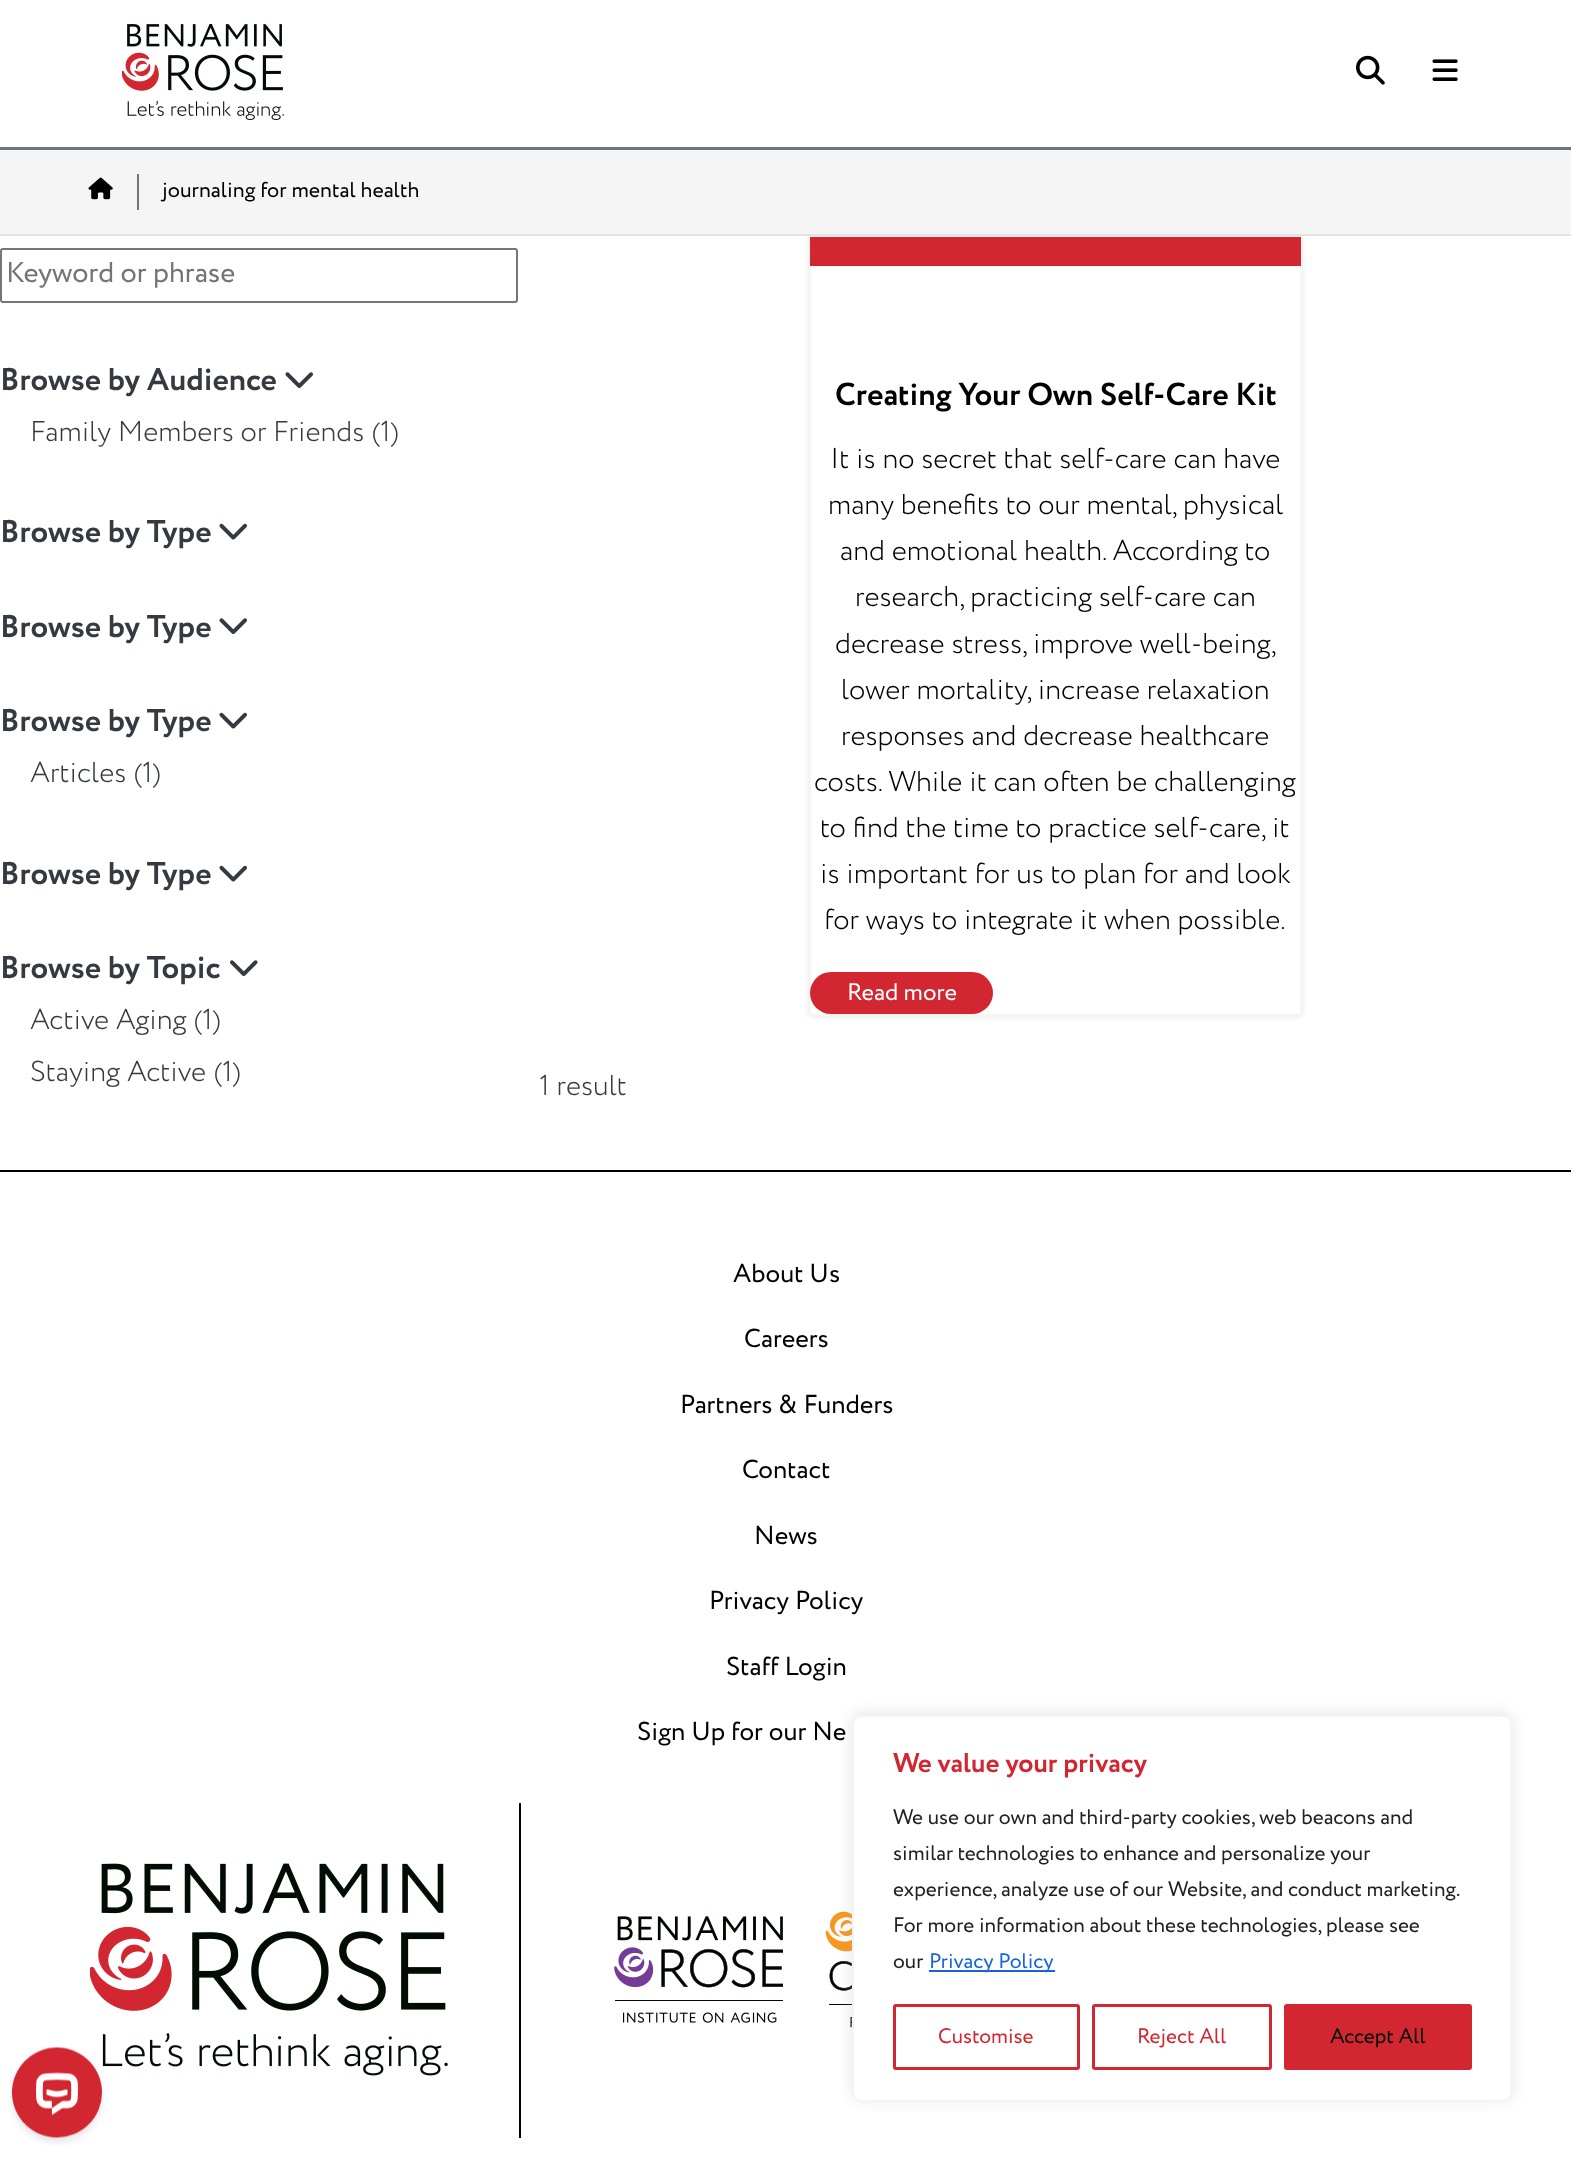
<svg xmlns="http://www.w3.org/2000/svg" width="1571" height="2161">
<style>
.a{font:21.6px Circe;fill:#000}
.b{font:28.75px Circe;fill:#757575}
.c{font:bold 31.5px Circe;fill:#343a40}
.d{font:300 28.75px Circe;fill:#343a40}
.e{font:bold 31.75px Circe;fill:#000}
.f{font:300 28.75px Circe;fill:#000}
.g{font:24px Circe;fill:#fff}
.h{font:26px Circe;fill:#000}
.i{font:bold 27px Circe;fill:#d22630}
.j{font:21px Circe;fill:#212121}
.k{font:21px Circe;fill:#1863dc}
.l{font:21px Circe;fill:#d22630}
.m{font:21px Circe;fill:#010b03}
</style>
<defs>
<clipPath id="clip1"><path d="M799 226h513v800h-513zm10 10h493v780h-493z" clip-rule="evenodd"/></clipPath>
</defs>
<rect width="100%" height="100%" fill="#fff"/>
<path fill="#6c757d" d="M0 147h1571v3H0z"/>
<image href="1.png" x="122" y="24" width="162" height="96"/>
<image href="2.png" x="1356" y="55" width="29" height="30"/>
<image href="3.png" x="1432" y="59" width="26" height="22"/>
<g clip-path="url(#clip1)">
<path fill="#0000001a" filter="blur(3px)" d="M809 236h493v780H809z"/>
</g>
<path fill="#f5f5f5" d="M0 150h1571v84H0z"/>
<path fill="#e3e3e3" d="M0 234h1571v2H0z"/>
<image href="4.png" x="88" y="177" width="25" height="23"/>
<path fill="#6c757d" d="M137 174h2v36H137z"/>
<rect fill="none" stroke="#767676" stroke-width="2" x="1" y="249" width="516" height="53" rx="2"/>
<image href="5.png" x="285" y="372" width="28" height="16"/>
<image href="6.png" x="219" y="523" width="28" height="17"/>
<image href="5.png" x="219" y="618" width="28" height="16"/>
<image href="6.png" x="219" y="712" width="28" height="17"/>
<image href="6.png" x="219" y="865" width="28" height="17"/>
<image href="7.png" x="230" y="960" width="28" height="16"/>
<path fill="none" stroke="#f5f5f5" stroke-width="2" d="M810 237h491v778H810z"/>
<path fill="#d22630" d="M810 237h491v29H810z"/>
<rect fill="#d22630" x="810" y="972" width="183" height="42" rx="21"/>
<path fill="#000" d="M0 1170h1571v2H0z"/>
<path fill="#000" d="M519 1803h2v335H519z"/>
<image href="8.png" x="90" y="1863" width="358" height="213"/>
<image href="9.png" x="614" y="1916" width="169" height="107"/>
<image href="10.png" x="825" y="1911" width="27" height="117"/>
<rect fill="#acabab4d" filter="blur(7.5px)" x="852" y="1713" width="660" height="387" rx="9"/>
<rect fill="#fff" stroke="#f4f4f4" stroke-width="2" x="853" y="1716" width="658" height="385" rx="8"/>
<path fill="#1863dc" d="M929 1970h126v2H929z"/>
<rect fill="none" stroke="#d22630" stroke-width="3" x="894.5" y="2005.5" width="184" height="63" rx="1.5"/>
<rect fill="none" stroke="#d22630" stroke-width="3" x="1093.5" y="2005.5" width="177" height="63" rx="1.5"/>
<rect fill="#d22630" stroke="#d22630" stroke-width="3" x="1285.5" y="2005.5" width="185" height="63" rx="1.5"/>
<image href="11.png" x="9" y="2047" width="96" height="98"/>
<text class="a" x="162" y="197">journaling for mental health</text>
<text class="b" x="6" y="282">Keyword or phrase</text>
<text class="c" x="0" y="390">Browse by Audience</text>
<text class="d" x="30" y="441">Family Members or Friends</text>
<text class="d" x="372" y="441">(1)</text>
<text class="c" x="0" y="542">Browse by Type</text>
<text class="c" x="0" y="637">Browse by Type</text>
<text class="c" x="0" y="731">Browse by Type</text>
<text class="d" x="30" y="782">Articles</text>
<text class="d" x="134" y="782">(1)</text>
<text class="c" x="0" y="884">Browse by Type</text>
<text class="c" x="0" y="978">Browse by Topic</text>
<text class="d" x="30" y="1029">Active Aging</text>
<text class="d" x="194" y="1029">(1)</text>
<text class="d" x="30" y="1081">Staying Active</text>
<text class="d" x="214" y="1081">(1)</text>
<text class="e" x="835" y="405">Creating Your Own Self-Care Kit</text>
<text class="f" x="830" y="468">It is no secret that self-care can have</text>
<text class="f" x="828" y="514">many benefits to our mental, physical</text>
<text class="f" x="840" y="560">and emotional health. According to</text>
<text class="f" x="855" y="606">research, practicing self-care can</text>
<text class="f" x="835" y="653">decrease stress, improve well-being,</text>
<text class="f" x="841" y="699">lower mortality, increase relaxation</text>
<text class="f" x="841" y="745">responses and decrease healthcare</text>
<text class="f" x="814" y="791">costs. While it can often be challenging</text>
<text class="f" x="820" y="837">to find the time to practice self-care, it</text>
<text class="f" x="820" y="883">is important for us to plan for and look</text>
<text class="f" x="824" y="929">for ways to integrate it when possible.</text>
<text class="g" x="847" y="1000">Read more</text>
<text class="d" x="539" y="1095">1 result</text>
<text class="h" x="733" y="1282">About Us</text>
<text class="h" x="744" y="1347">Careers</text>
<text class="h" x="680" y="1413">Partners &amp; Funders</text>
<text class="h" x="742" y="1478">Contact</text>
<text class="h" x="754" y="1544">News</text>
<text class="h" x="709" y="1609">Privacy Policy</text>
<text class="h" x="726" y="1675">Staff Login</text>
<text class="h" x="637" y="1740">Sign Up for our Ne</text>
<text class="i" x="893" y="1772">We value your privacy</text>
<text class="j" x="893" y="1824">We use our own and third-party cookies, web beacons and</text>
<text class="j" x="893" y="1860">similar technologies to enhance and personalize your</text>
<text class="j" x="893" y="1896">experience, analyze use of our Website, and conduct marketing.</text>
<text class="j" x="893" y="1932">For more information about these technologies, please see</text>
<text class="j" x="893" y="1968">our</text>
<text class="k" x="929" y="1968">Privacy Policy</text>
<text class="l" x="938" y="2043">Customise</text>
<text class="l" x="1137" y="2043">Reject All</text>
<text class="m" x="1330" y="2043">Accept All</text>
</svg>
